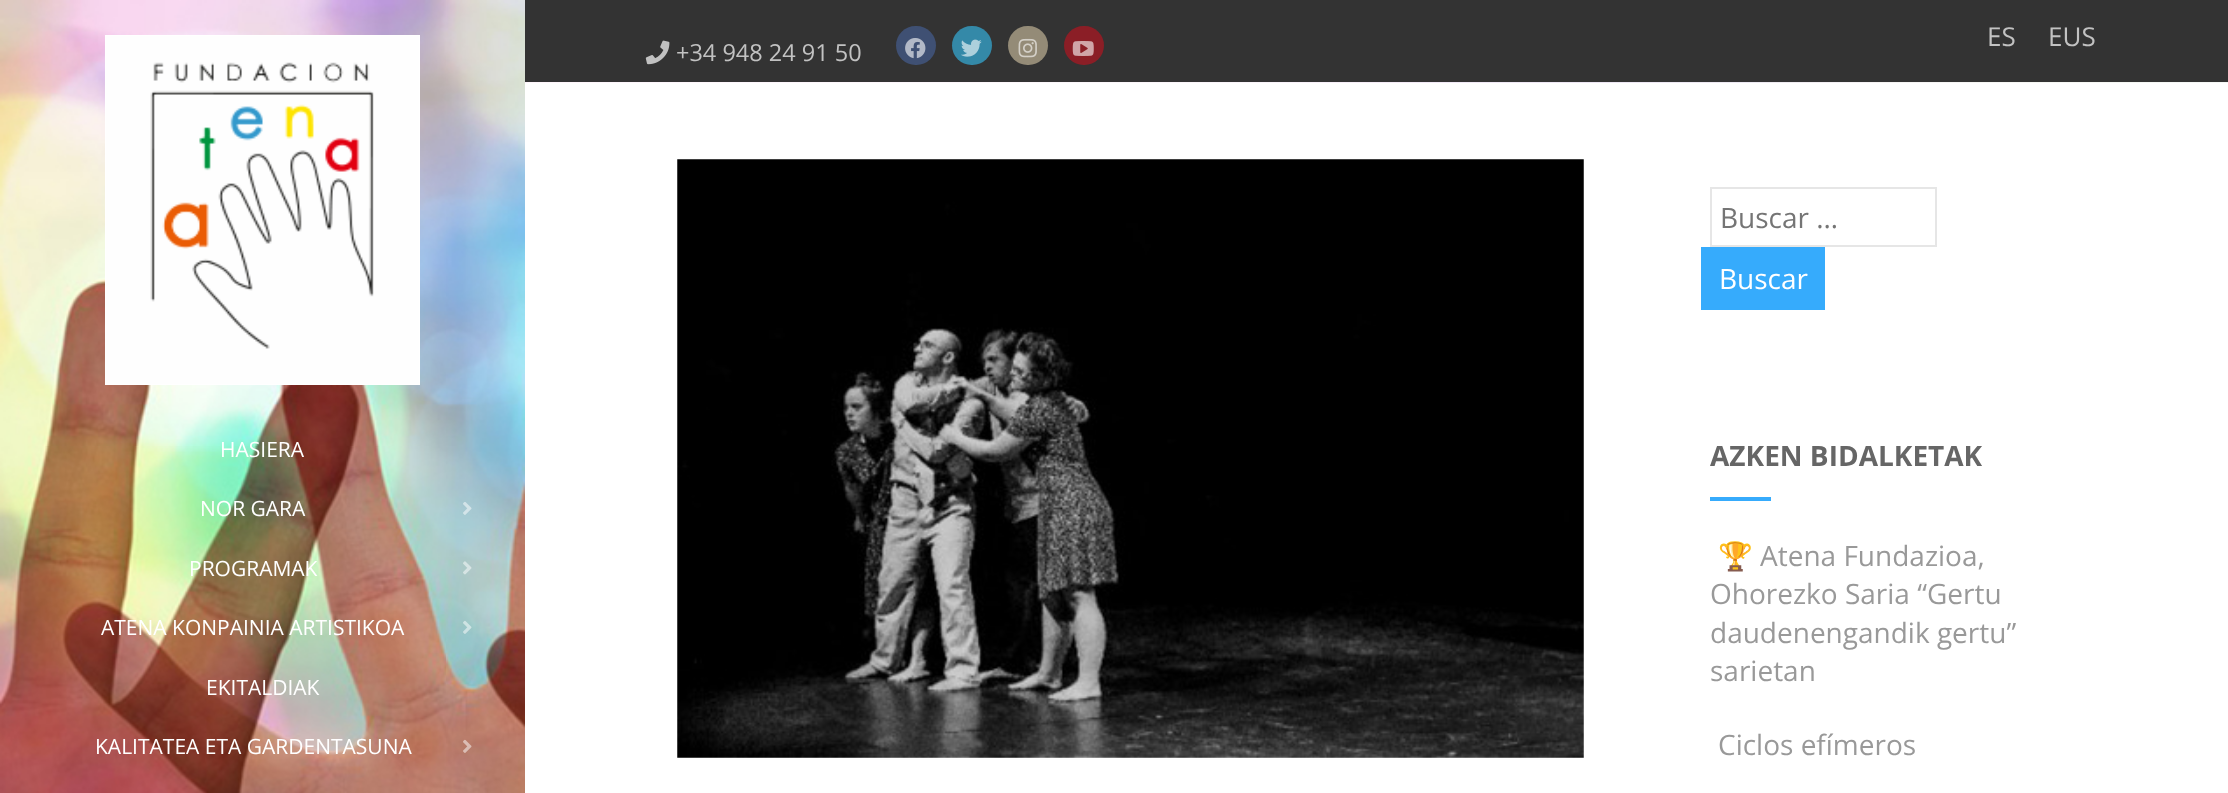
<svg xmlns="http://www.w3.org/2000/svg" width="2228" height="793">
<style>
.a{font:26px Open Sans;fill:#c2c2c2}
.b{font:23.5px Open Sans;fill:#c2c2c2}
.c{font:21px Open Sans;fill:#fff}
.d{font:28px Open Sans;fill:#757575}
.e{font:28px Open Sans;fill:#fff}
.f{font:bold 28px Open Sans;fill:#666}
.g{font:28px Noto Color Emoji;fill:#999}
.h{font:28px Open Sans;fill:#999}
</style>
<rect width="100%" height="100%" fill="#fff"/>
<image href="1.png" x="525" y="82" width="1703" height="1"/>
<path fill="#333" d="M525 0h1703v82H525z"/>
<image href="2.png" x="645" y="40" width="25" height="25"/>
<rect fill="#3f5073" x="896" y="26" width="40" height="39" rx="19.5"/>
<image href="3.png" x="905" y="38" width="21" height="21"/>
<rect fill="#3489a8" x="952" y="26" width="40" height="39" rx="19.5"/>
<image href="4.png" x="961" y="39" width="21" height="18"/>
<rect fill="#948b77" x="1008" y="26" width="40" height="39" rx="19.5"/>
<image href="5.png" x="1018" y="38" width="19" height="20"/>
<rect fill="#8b1e26" x="1064" y="26" width="40" height="39" rx="19.5"/>
<image href="6.png" x="1072" y="41" width="22" height="15"/>
<image href="7.png" x="0" y="0" width="525" height="793"/>
<image href="8.png" x="105" y="35" width="315" height="350"/>
<image href="9.png" x="463" y="502" width="9" height="13"/>
<image href="10.png" x="463" y="561" width="9" height="14"/>
<image href="11.png" x="463" y="620" width="9" height="14"/>
<image href="12.png" x="463" y="739" width="9" height="14"/>
<image href="13.png" x="677" y="159" width="907" height="599"/>
<path fill="none" stroke="#e6e6e6" stroke-width="2" d="M1711 188h225v58H1711z"/>
<path fill="#36abfc" d="M1701 247h124v63H1701z"/>
<path fill="#36abfc" d="M1710 497h61v4H1710z"/>
<text class="a" x="1987" y="46">ES</text>
<text class="a" x="2048" y="46">EUS</text>
<text class="b" x="676" y="61">+34 948 24 91 50</text>
<text class="c" x="220" y="457">HASIERA</text>
<text class="c" x="200" y="516">NOR GARA</text>
<text class="c" x="189" y="576">PROGRAMAK</text>
<text class="c" x="101" y="635">ATENA KONPAINIA ARTISTIKOA</text>
<text class="c" x="206" y="695">EKITALDIAK</text>
<text class="c" x="95" y="754">KALITATEA ETA GARDENTASUNA</text>
<text class="d" x="1720" y="228">Buscar …</text>
<text class="e" x="1719" y="289">Buscar</text>
<text class="f" x="1710" y="466">AZKEN BIDALKETAK</text>
<text class="g" x="1718" y="566">🏆</text>
<text class="h" x="1760" y="566">Atena Fundazioa,</text>
<text class="h" x="1710" y="604">Ohorezko Saria “Gertu</text>
<text class="h" x="1710" y="643">daudenengandik gertu”</text>
<text class="h" x="1710" y="681">sarietan</text>
<text class="h" x="1718" y="755">Ciclos efímeros</text>
</svg>
